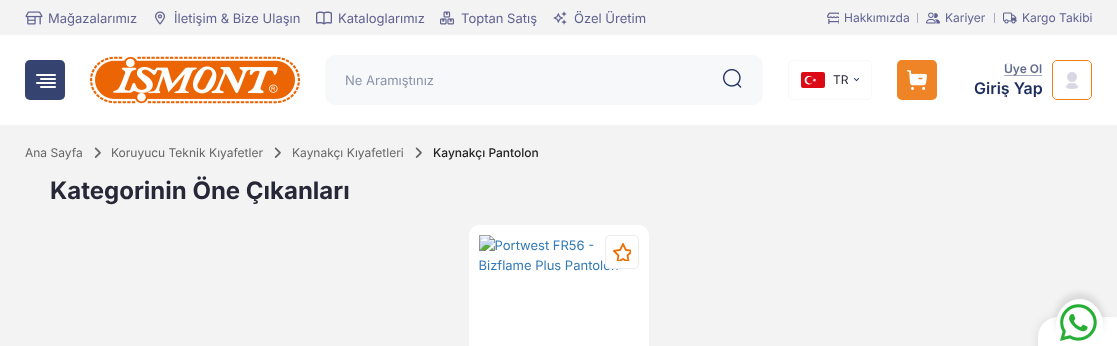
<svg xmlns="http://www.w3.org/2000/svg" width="1117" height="346">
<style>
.a{font:13px Inter;fill:#606392}
.b{font:12px Inter;fill:#606392}
.c{font:13px Inter;fill:#8b93ad}
.d{font:12px Inter;fill:#262737}
.e{font:600 12px Inter;fill:#626d8f}
.f{font:600 16px Inter;fill:#1e2e5f}
.g{font:12px Inter;fill:#666}
.h{font:500 12px Inter;fill:#222}
.i{font:bold 24px Inter;fill:#262737}
</style>
<defs>
<clipPath id="clip1"><path d="M962 63h80v34H962z"/></clipPath>
</defs>
<rect width="100%" height="100%" fill="#f3f3f3"/>
<image href="1.png" x="25" y="11" width="18" height="14"/>
<image href="2.png" x="155" y="11" width="10" height="14"/>
<image href="3.png" x="316" y="11" width="16" height="14"/>
<image href="4.png" x="440" y="11" width="14" height="14"/>
<image href="5.png" x="553" y="11" width="14" height="14"/>
<image href="6.png" x="827" y="12" width="12" height="12"/>
<path fill="#aaabc3" d="M917 13h1v10H917z"/>
<image href="7.png" x="926" y="12" width="14" height="12"/>
<path fill="#aaabc3" d="M994 13h1v10H994z"/>
<image href="8.png" x="1003" y="12" width="14" height="12"/>
<path fill="#fff" d="M0 35h1117v90H0z"/>
<rect fill="#34436f" x="25" y="60" width="40" height="40" rx="5"/>
<image href="9.png" x="36" y="74" width="20" height="14"/>
<image href="10.png" x="90" y="56" width="210" height="48"/>
<rect fill="#f7f8fa" x="325" y="55" width="438" height="50" rx="10"/>
<image href="11.png" x="723" y="69" width="19" height="19"/>
<rect fill="none" stroke="#f7f8fa" x="788.5" y="60.5" width="83" height="39" rx="4.5"/>
<image href="12.png" x="801" y="72" width="24" height="16"/>
<image href="13.png" x="854" y="78" width="5" height="4"/>
<rect fill="#ef8426" x="897" y="60" width="40" height="40" rx="5"/>
<image href="14.png" x="907" y="70" width="20" height="20"/>
<path fill="#a5abbf" d="M1004 75h38v1H1004z"/>
<rect fill="none" stroke="#f57c11" x="1052.5" y="60.5" width="39" height="39" rx="4.5"/>
<image href="15.png" x="1066" y="72" width="12" height="17"/>
<image href="16.png" x="94" y="147" width="7" height="11"/>
<image href="16.png" x="274" y="147" width="7" height="11"/>
<image href="16.png" x="415" y="147" width="7" height="11"/>
<rect fill="#fff" x="469" y="225" width="180" height="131" rx="10"/>
<image href="17.png" x="479" y="235" width="139" height="36"/>
<rect fill="#fff" x="605" y="235" width="34" height="34" rx="5"/>
<rect fill="none" stroke="#d9d9d980" x="605.5" y="235.5" width="33" height="33" rx="4.5"/>
<image href="18.png" x="613" y="243" width="18" height="18"/>
<rect fill="#0000001a" filter="blur(5px)" x="1038" y="317" width="79" height="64" rx="20"/>
<path fill="#fff" d="M1058 317h59v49h-74c-3 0-5-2-5-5v-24c0-11 9-20 20-20z"/>
<rect fill="#0000001a" filter="blur(3px)" x="1056" y="293" width="47" height="50" rx="23.5"/>
<path fill="#fff" d="M1080 299c12 0 23 12 23 25v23c0 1-1 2-3 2h-42c-1 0-2-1-2-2v-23c0-13 11-25 24-25z"/>
<image href="19.png" x="1060" y="304" width="37" height="37"/>
<text class="a" x="48" y="23">Mağazalarımız</text>
<text class="a" x="174" y="23">İletişim &amp; Bize Ulaşın</text>
<text class="a" x="338" y="23">Kataloglarımız</text>
<text class="a" x="461" y="23">Toptan Satış</text>
<text class="a" x="574" y="23">Özel Üretim</text>
<text class="b" x="844" y="22">Hakkımızda</text>
<text class="b" x="945" y="22">Kariyer</text>
<text class="b" x="1022" y="22">Kargo Takibi</text>
<text class="c" x="345" y="85">Ne Aramıştınız</text>
<text class="d" x="833" y="84">TR</text>
<g clip-path="url(#clip1)">
<text class="e" x="1004" y="73">Üye Ol</text>
<text class="f" x="974" y="94">Giriş Yap</text>
</g>
<text class="g" x="25" y="157">Ana Sayfa</text>
<text class="g" x="111" y="157">Koruyucu Teknik Kıyafetler</text>
<text class="g" x="292" y="157">Kaynakçı Kıyafetleri</text>
<text class="h" x="433" y="157">Kaynakçı Pantolon</text>
<text class="i" x="50" y="199">Kategorinin Öne Çıkanları</text>
</svg>
